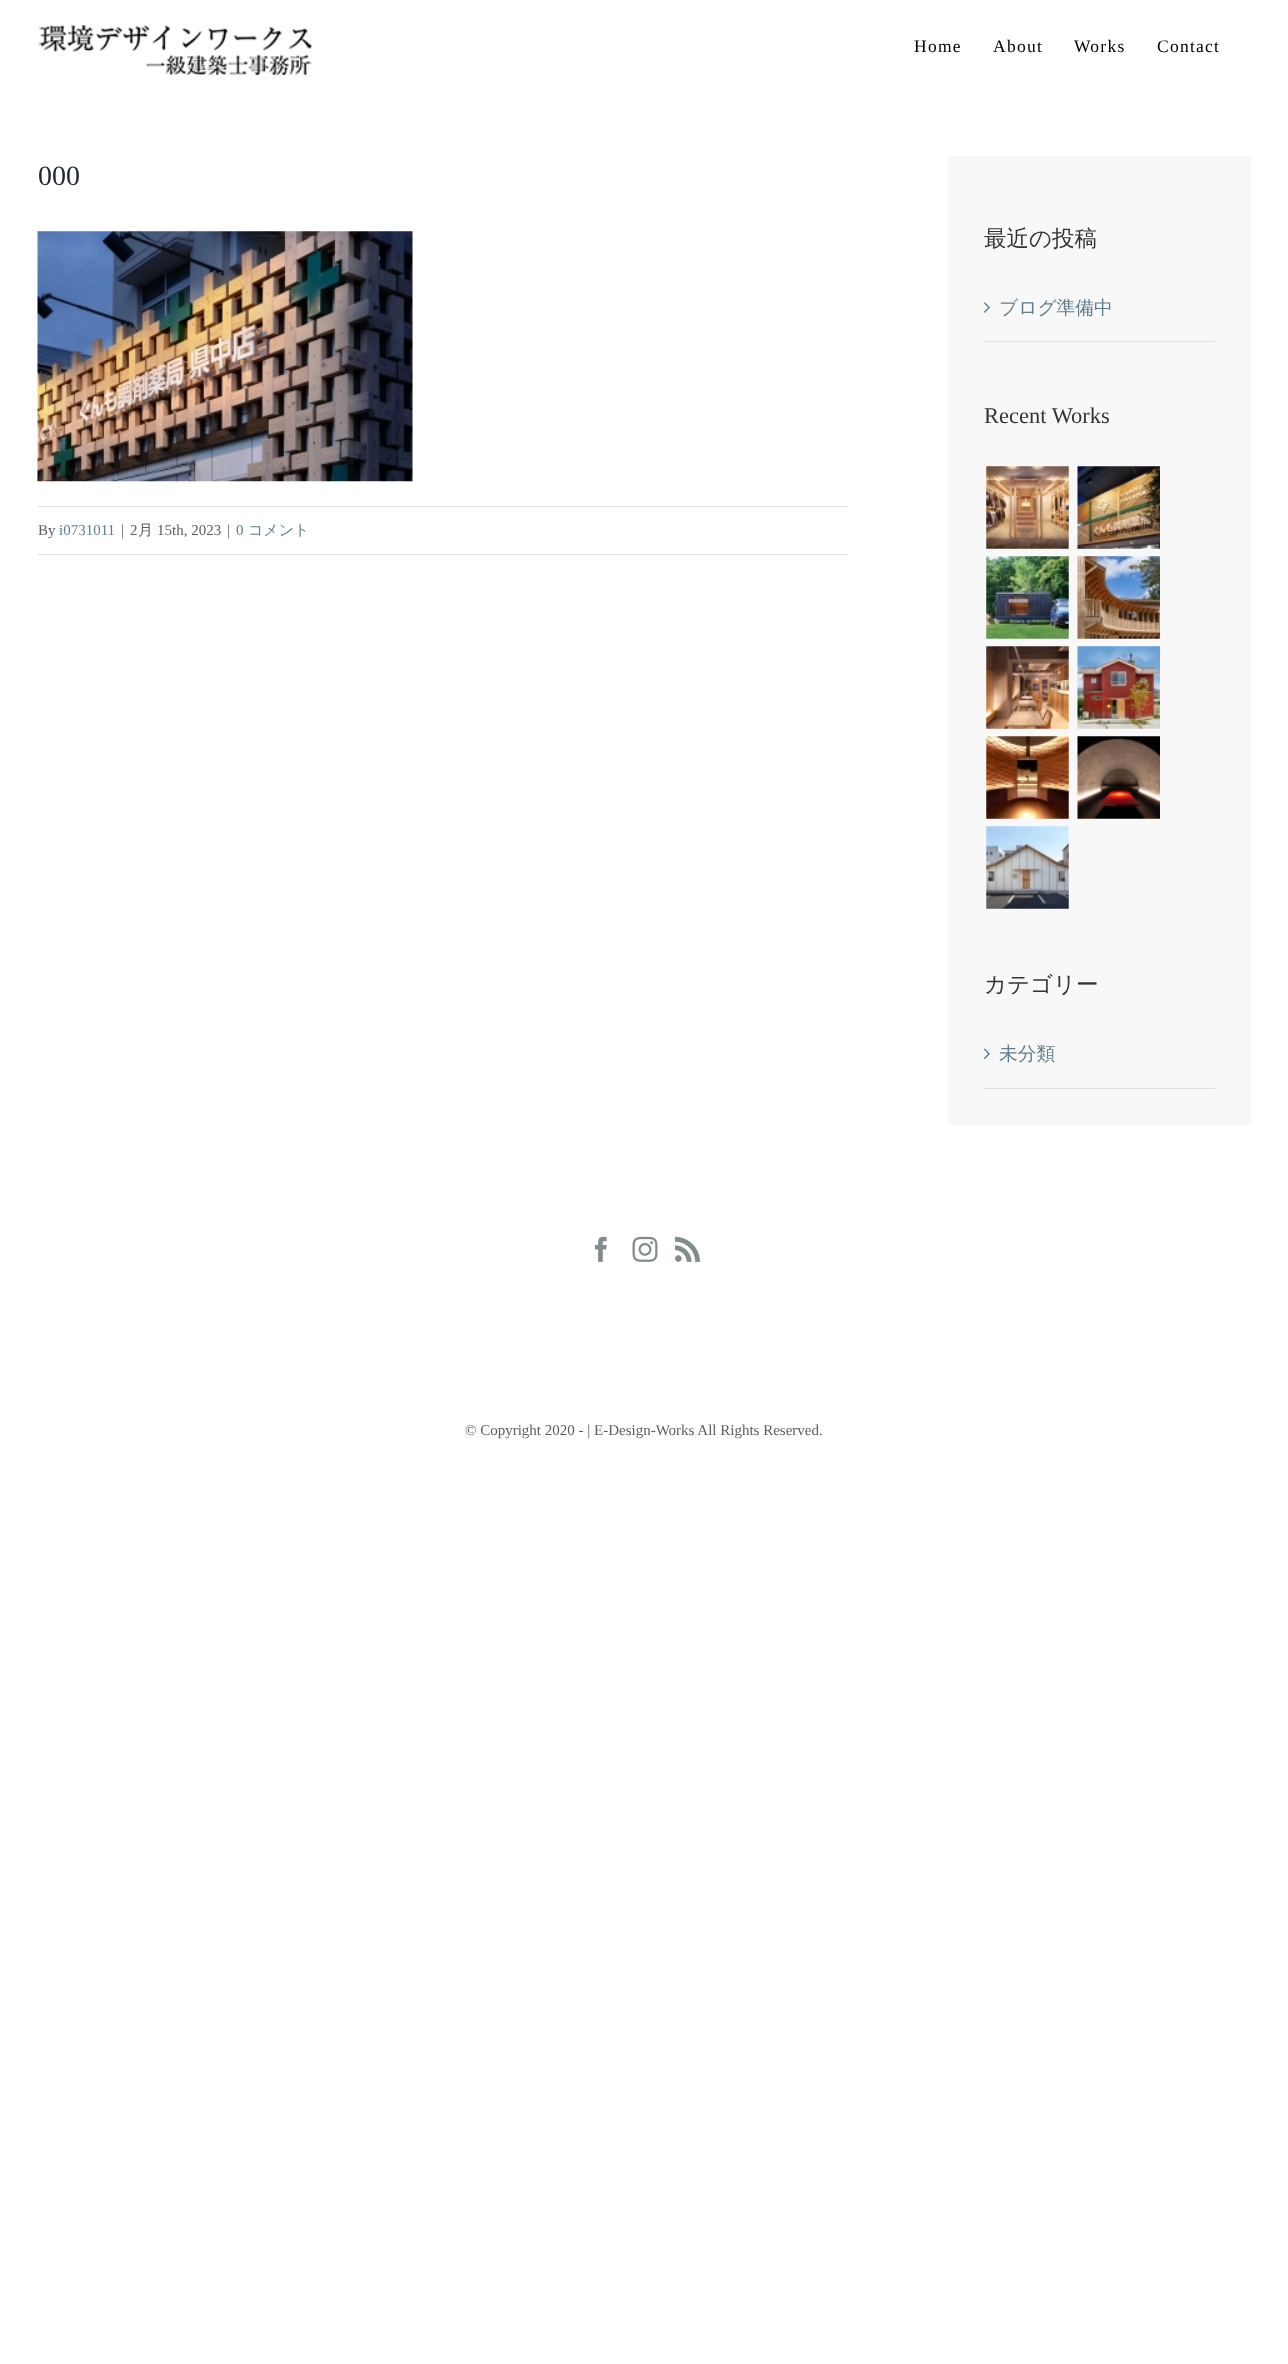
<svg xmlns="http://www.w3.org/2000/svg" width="1288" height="2364">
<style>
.a{font:17.5px Liberation Serif;letter-spacing:1.25px;fill:#000}
.b{font:28px Liberation Serif;fill:#242930}
.c{font:15px Liberation Serif;fill:#5a5d62}
.d{font:15px Liberation Serif;fill:#607d8b}
.e{font:500 15px WenQuanYi Zen Hei;fill:#5a5d62}
.f{font:500 15px WenQuanYi Zen Hei;fill:#607d8b}
.g{font:500 22.5px WenQuanYi Zen Hei;fill:#333}
.h{font:500 18.75px WenQuanYi Zen Hei;fill:#607d8b}
.i{font:22.5px Liberation Serif;fill:#333}
</style>
<rect width="100%" height="100%" fill="#fff"/>
<image href="1.png" x="38" y="25" width="274" height="50"/>
<image href="2.png" x="37" y="231" width="376" height="251"/>
<path fill="#e0dede" d="M38 506h810v1H38z"/>
<path fill="#e0dede" d="M38 554h810v1H38z"/>
<path fill="#f8f8f8" d="M948 156h303v969H948z"/>
<path fill="#e0dede" d="M984 341h231v1H984z"/>
<image href="3.png" x="983" y="302" width="7" height="11"/>
<image href="4.png" x="986" y="466" width="83" height="83"/>
<image href="5.png" x="1077" y="466" width="83" height="83"/>
<image href="6.png" x="986" y="556" width="83" height="83"/>
<image href="7.png" x="1077" y="556" width="83" height="83"/>
<image href="8.png" x="986" y="646" width="83" height="83"/>
<image href="9.png" x="1077" y="646" width="83" height="83"/>
<image href="10.png" x="986" y="736" width="83" height="83"/>
<image href="11.png" x="1077" y="736" width="83" height="83"/>
<image href="12.png" x="986" y="826" width="83" height="83"/>
<path fill="#e0dede" d="M984 1088h231v1H984z"/>
<image href="13.png" x="983" y="1048" width="7" height="11"/>
<image href="14.png" x="595" y="1236" width="12" height="26"/>
<image href="15.png" x="632" y="1236" width="26" height="26"/>
<image href="16.png" x="675" y="1236" width="25" height="26"/>
<text class="a" x="914" y="52">Home</text>
<text class="a" x="993" y="52">About</text>
<text class="a" x="1074" y="52">Works</text>
<text class="a" x="1157" y="52">Contact</text>
<text class="b" x="38" y="185">000</text>
<text class="c" x="38" y="535">By</text>
<text class="d" x="59" y="535">i0731011</text>
<text class="c" x="121" y="535">|</text>
<text class="c" x="130" y="535">2</text>
<text class="e" x="138" y="535">月</text>
<text class="c" x="157" y="535">15th, 2023</text>
<text class="c" x="227" y="535">|</text>
<text class="d" x="236" y="535">0</text>
<text class="f" x="248" y="535">コメント</text>
<text class="g" x="984" y="246">最近の投稿</text>
<text class="h" x="999" y="314">ブログ準備中</text>
<text class="i" x="984" y="423">Recent Works</text>
<text class="g" x="984" y="992">カテゴリー</text>
<text class="h" x="999" y="1060">未分類</text>
<text class="c" x="465" y="1435">© Copyright 2020 - | E-Design-Works All Rights Reserved.</text>
</svg>
